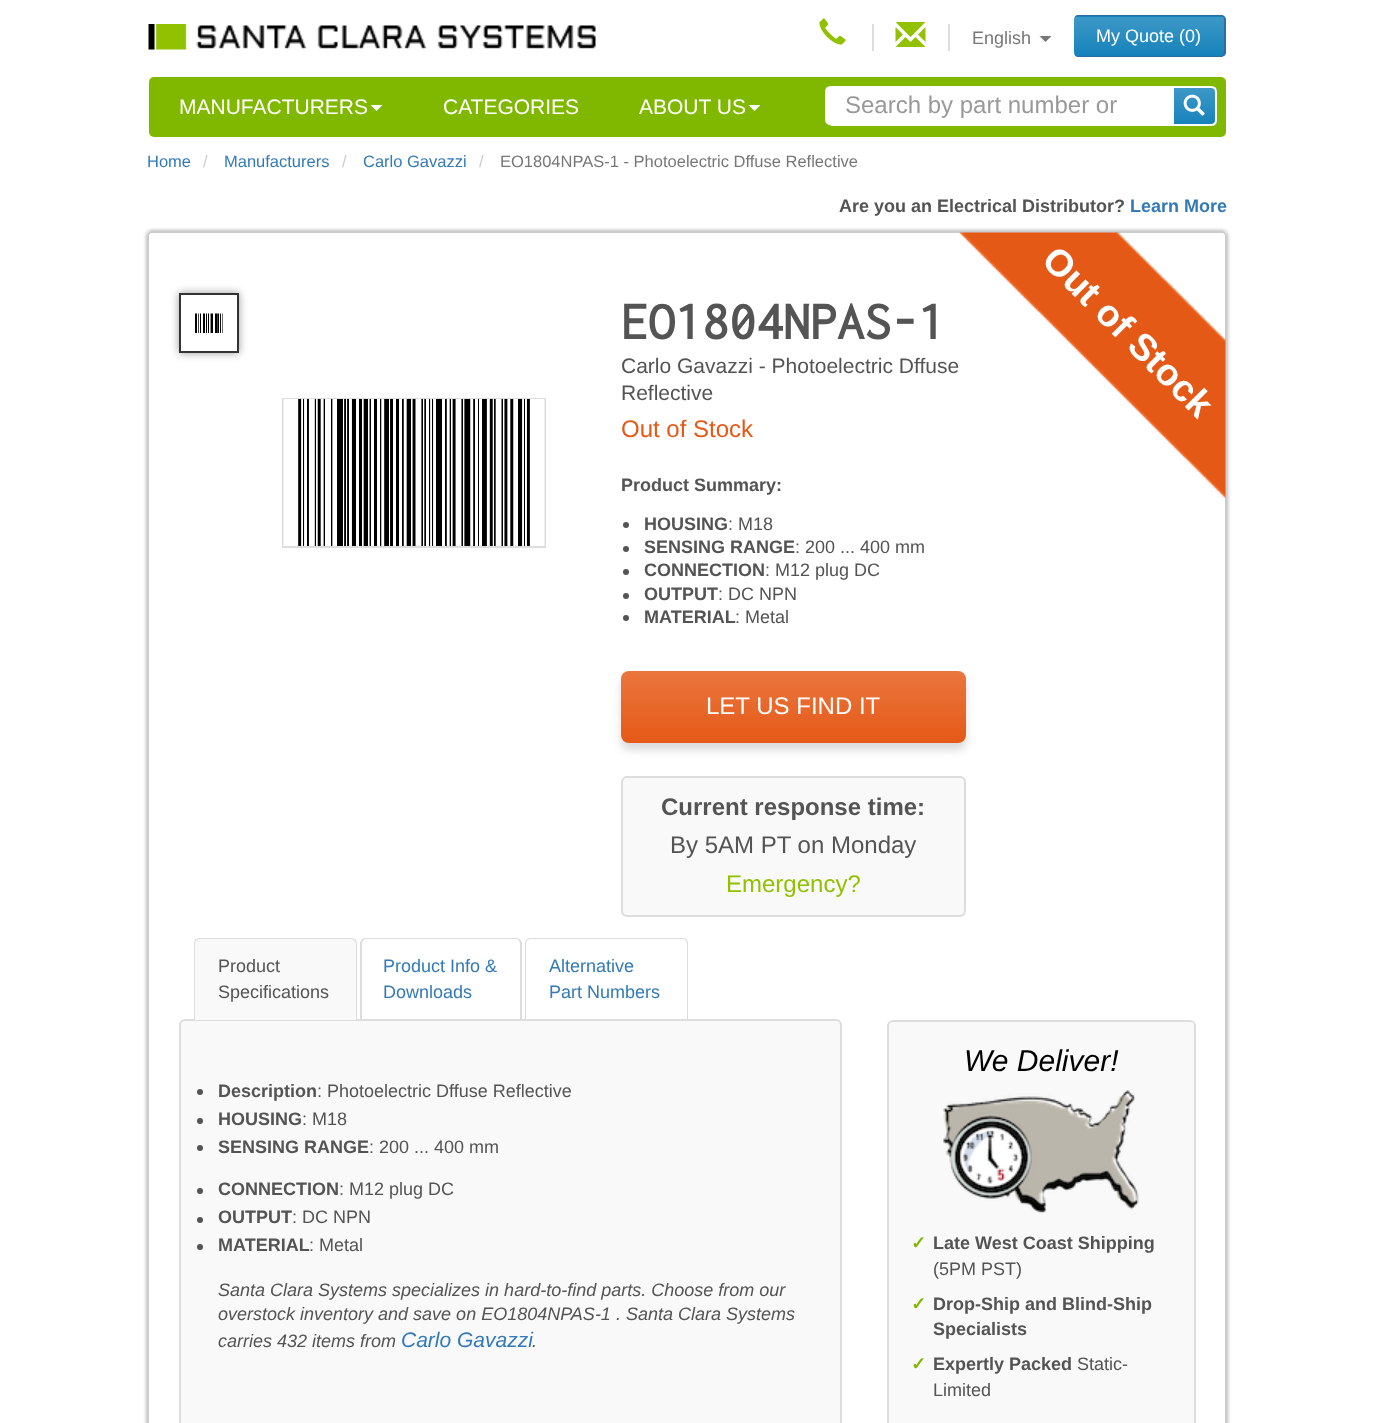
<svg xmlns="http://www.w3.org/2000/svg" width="1373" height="1423">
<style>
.a{font:18px Liberation Sans;fill:#777}
.b{font:18px Liberation Sans;fill:#fff}
.c{font:21px Liberation Sans;fill:#fff}
.d{font:24px Liberation Sans;fill:#999}
.e{font:16.5px Liberation Sans;fill:#337ab7}
.f{font:16.5px Liberation Sans;fill:#ccc}
.g{font:16.5px Liberation Sans;fill:#777}
.h{font:bold 18px Liberation Sans;fill:#535453}
.i{font:bold 18px Liberation Sans;fill:#337ab7}
.j{font:bold 54px Inconsolata;fill:#535453}
.k{font:21px Liberation Sans;fill:#535453}
.l{font:bold 37.5px Liberation Sans;fill:#fff}
.m{font:24px Liberation Sans;fill:#e55916}
.n{font:18px Liberation Sans;fill:#535453}
.o{font:24px Liberation Sans;fill:#fff}
.p{font:bold 24px Liberation Sans;fill:#535453}
.q{font:24px Liberation Sans;fill:#535453}
.r{font:24px Liberation Sans;fill:#91c100}
.s{font:18px Liberation Sans;fill:#337ab7}
.t{font:italic 18px Liberation Sans;fill:#535453}
.u{font:italic 21px Liberation Sans;fill:#337ab7}
.v{font:italic 30px Liberation Sans;fill:#000}
.w{font:bold 18px DejaVu Sans;fill:#80b800}
</style>
<defs>
<clipPath id="clip1"><rect x="1074" y="15" width="152" height="42" rx="5"/></clipPath>
<linearGradient id="g1" gradientUnits="userSpaceOnUse" x1="1149" y1="-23" x2="1149" y2="17"><stop offset="0" stop-color="#3e99c7"/><stop offset="1" stop-color="#1582bb"/></linearGradient>
<linearGradient id="g2" gradientUnits="userSpaceOnUse" x1="1149" y1="16" x2="1149" y2="56"><stop offset="0" stop-color="#3e99c7"/><stop offset="1" stop-color="#1582bb"/></linearGradient>
<clipPath id="clip2"><path d="M1172 86h39c3.5 0 6 2.5 6 6v28c0 3.5-2.5 6-6 6h-39z"/></clipPath>
<linearGradient id="g3" gradientUnits="userSpaceOnUse" x1="1194" y1="87" x2="1194" y2="125"><stop offset="0" stop-color="#3e99c7"/><stop offset="1" stop-color="#1582bb"/></linearGradient>
<clipPath id="clip3"><path d="M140 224h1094v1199h-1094zm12 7h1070c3 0 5 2 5 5v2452c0 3-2 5-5 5h-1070c-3 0-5-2-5-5v-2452c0-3 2-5 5-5z" clip-rule="evenodd"/></clipPath>
<clipPath id="clip4"><path d="M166 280h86v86h-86zm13 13h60v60h-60z" clip-rule="evenodd"/></clipPath>
<linearGradient id="g4" gradientUnits="userSpaceOnUse" x1="794" y1="671" x2="794" y2="743"><stop offset="0" stop-color="#ea763e"/><stop offset="1" stop-color="#e55917"/></linearGradient>
</defs>
<rect width="100%" height="100%" fill="#fff"/>
<image href="1.png" x="148" y="24" width="448" height="26"/>
<image href="2.png" x="819" y="18" width="27" height="27"/>
<path fill="#ddd" d="M872 24h2v27H872z"/>
<image href="3.png" x="895" y="22" width="31" height="25"/>
<path fill="#ddd" d="M948 24h2v27H948z"/>
<path fill="#777" d="M1039.5 36h12l-6 6z"/>
<g clip-path="url(#clip1)">
<path fill="url(#g1)" d="M1074 15h152v2H1074z"/>
<path fill="url(#g2)" d="M1074 17h152v39H1074z"/>
</g>
<path fill="#2e6da4" fill-rule="evenodd" d="M1078 15h143c2 0 5 2 5 5v32c0 3-3 5-5 5h-143c-2 0-4-2-4-5v-32c0-3 2-5 4-5zm0 1h143c2 0 3 2 3 4v32c0 2-1 4-3 4h-143c-2 0-4-2-4-4v-32c0-2 2-4 4-4z"/>
<rect fill="#80b800" x="149" y="77" width="1077" height="60" rx="5"/>
<path fill="#fff" d="M370.5 105h12l-6 6z"/>
<path fill="#fff" d="M748.5 105h12l-6 6z"/>
<path fill="#fff" stroke="#fff" stroke-width="2" d="M831 87h341v37h-341c-3 0-5-2-5-5v-27c0-3 2-5 5-5z"/>
<path fill="#fff" d="M833 87h339v39h-339c-3.5 0-6-2.5-6-6v-27c0-3.5 2.5-6 6-6z"/>
<g clip-path="url(#clip2)">
<path fill="url(#g3)" d="M1174 87h43v38H1174z"/>
</g>
<path fill="none" stroke="#fff" stroke-width="2" d="M1173 87h38c3 0 5 2 5 5v28c0 3-2 5-5 5h-38z"/>
<image href="4.png" x="1183" y="94" width="22" height="22"/>
<g clip-path="url(#clip3)">
<rect fill="#00000066" filter="blur(2px)" x="147" y="231" width="1080" height="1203" rx="5"/>
</g>
<rect fill="none" stroke="#ccc" stroke-width="2" x="148" y="232" width="1078" height="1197" rx="4"/>
<g clip-path="url(#clip4)">
<path fill="#00000066" filter="blur(4px)" d="M179 293h60v60H179z"/>
</g>
<path fill="none" stroke="#333" stroke-width="2" d="M180 294h58v58H180z"/>
<image href="6.png" x="195" y="313" width="28" height="20"/>
<path fill="none" stroke="#ddd" stroke-width="2" d="M283 399h262v148H283z"/>
<image href="7.png" x="283" y="399" width="262" height="147"/>
<circle fill="#535453" cx="626" cy="525" r="3"/>
<circle fill="#535453" cx="626" cy="549" r="3"/>
<circle fill="#535453" cx="626" cy="572" r="3"/>
<circle fill="#535453" cx="626" cy="596" r="3"/>
<circle fill="#535453" cx="626" cy="618" r="3"/>
<rect fill="#dadada" filter="blur(4px)" x="621" y="678" width="345" height="72" rx="8"/>
<rect fill="url(#g4)" x="621" y="671" width="345" height="72" rx="8"/>
<rect fill="#f9f9f9" stroke="#ddd" stroke-width="2" x="622" y="777" width="343" height="139" rx="5"/>
<rect fill="#f9f9f9" stroke="#ddd" stroke-width="2" x="180" y="1020" width="661" height="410" rx="5"/>
<path fill="#f9f9f9" d="M200 938h151c3.5 0 6 2.5 6 6v76h-163v-76c0-3.5 2.5-6 6-6z"/>
<path fill="#ddd" fill-rule="evenodd" d="M200 938h151c3 0 6 2 6 6v76h-163v-76c0-4 2-6 6-6zm0 1h151c2 0 5 2 5 5v76h-161v-76c0-3 2-5 5-5z"/>
<path fill="#ddd" fill-rule="evenodd" d="M366 938h150c3 0 6 2 6 6v76h-162v-76c0-4 3-6 6-6zm0 1h150c2 0 4 2 4 5v76h-158v-76c0-3 2-5 4-5z"/>
<path fill="#ddd" fill-rule="evenodd" d="M531 938h151c4 0 6 2 6 6v76h-163v-76c0-4 3-6 6-6zm0 1h151c3 0 5 2 5 5v76h-161v-76c0-3 3-5 5-5z"/>
<circle fill="#535453" cx="200" cy="1092" r="3"/>
<circle fill="#535453" cx="200" cy="1121" r="3"/>
<circle fill="#535453" cx="200" cy="1148" r="3"/>
<circle fill="#535453" cx="200" cy="1191" r="3"/>
<circle fill="#535453" cx="200" cy="1220" r="3"/>
<circle fill="#535453" cx="200" cy="1247" r="3"/>
<rect fill="#f9f9f9" stroke="#ddd" stroke-width="2" x="888" y="1021" width="307" height="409" rx="5"/>
<image href="8.png" x="943" y="1090" width="196" height="123"/>
<text class="a" x="972" y="44">English</text>
<text class="b" x="1096" y="42">My Quote (0)</text>
<text class="c" x="179" y="114">MANUFACTURERS</text>
<text class="c" x="443" y="114">CATEGORIES</text>
<text class="c" x="639" y="114">ABOUT US</text>
<text class="d" x="845" y="113">Search by part number or</text>
<text class="e" x="147" y="167">Home</text>
<text class="f" x="203" y="167">/</text>
<text class="e" x="224" y="167">Manufacturers</text>
<text class="f" x="342" y="167">/</text>
<text class="e" x="363" y="167">Carlo Gavazzi</text>
<text class="f" x="479" y="167">/</text>
<text class="g" x="500" y="167">EO1804NPAS-1 - Photoelectric Dffuse Reflective</text>
<text class="h" x="839" y="212">Are you an Electrical Distributor?</text>
<text class="i" x="1130" y="212">Learn More</text>
<text class="j" x="621" y="339">EO1804NPAS-1</text>
<text class="k" x="621" y="373">Carlo Gavazzi - Photoelectric Dffuse</text>
<image href="5.png" x="958" y="232" width="268" height="267"/>
<text class="l" x="1040" y="262" transform="rotate(45 1040 262)">Out of Stock</text>
<text class="k" x="621" y="400">Reflective</text>
<text class="m" x="621" y="437">Out of Stock</text>
<text class="h" x="621" y="491">Product Summary:</text>
<text class="h" x="644" y="530">HOUSING</text>
<text class="n" x="728" y="530">: M18</text>
<text class="h" x="644" y="553">SENSING RANGE</text>
<text class="n" x="795" y="553">: 200 ... 400 mm</text>
<text class="h" x="644" y="576">CONNECTION</text>
<text class="n" x="765" y="576">: M12 plug DC</text>
<text class="h" x="644" y="600">OUTPUT</text>
<text class="n" x="718" y="600">: DC NPN</text>
<text class="h" x="644" y="623">MATERIAL</text>
<text class="n" x="735" y="623">: Metal</text>
<text class="o" x="706" y="714">LET US FIND IT</text>
<text class="p" x="661" y="815">Current response time:</text>
<text class="q" x="670" y="853">By 5AM PT on Monday</text>
<text class="r" x="726" y="892">Emergency?</text>
<text class="n" x="218" y="972">Product</text>
<text class="n" x="218" y="998">Specifications</text>
<text class="s" x="383" y="972">Product Info &amp;</text>
<text class="s" x="383" y="998">Downloads</text>
<text class="s" x="549" y="972">Alternative</text>
<text class="s" x="549" y="998">Part Numbers</text>
<text class="h" x="218" y="1097">Description</text>
<text class="n" x="317" y="1097">: Photoelectric Dffuse Reflective</text>
<text class="h" x="218" y="1125">HOUSING</text>
<text class="n" x="302" y="1125">: M18</text>
<text class="h" x="218" y="1153">SENSING RANGE</text>
<text class="n" x="369" y="1153">: 200 ... 400 mm</text>
<text class="h" x="218" y="1195">CONNECTION</text>
<text class="n" x="339" y="1195">: M12 plug DC</text>
<text class="h" x="218" y="1223">OUTPUT</text>
<text class="n" x="292" y="1223">: DC NPN</text>
<text class="h" x="218" y="1251">MATERIAL</text>
<text class="n" x="309" y="1251">: Metal</text>
<text class="t" x="218" y="1296">Santa Clara Systems specializes in hard-to-find parts. Choose from our</text>
<text class="t" x="218" y="1320">overstock inventory and save on EO1804NPAS-1 . Santa Clara Systems</text>
<text class="t" x="218" y="1347">carries 432 items from</text>
<text class="u" x="401" y="1347">Carlo Gavazzi</text>
<text class="t" x="532" y="1347">.</text>
<text class="v" x="964" y="1071">We Deliver!</text>
<text class="w" x="911" y="1249">✓</text>
<text class="h" x="933" y="1249">Late West Coast Shipping</text>
<text class="n" x="933" y="1275">(5PM PST)</text>
<text class="w" x="911" y="1310">✓</text>
<text class="h" x="933" y="1310">Drop-Ship and Blind-Ship</text>
<text class="h" x="933" y="1335">Specialists</text>
<text class="w" x="911" y="1370">✓</text>
<text class="h" x="933" y="1370">Expertly Packed</text>
<text class="n" x="1077" y="1370">Static-</text>
<text class="n" x="933" y="1396">Limited</text>
</svg>
